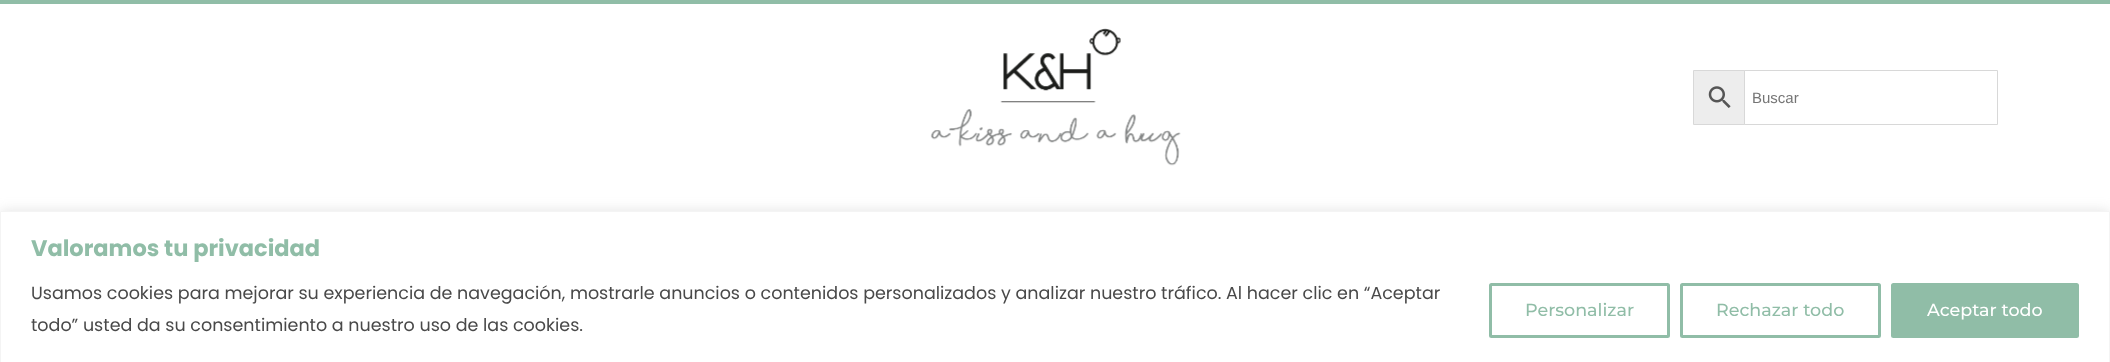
<svg xmlns="http://www.w3.org/2000/svg" width="2110" height="362">
<style>
.a{font:15px Liberation Sans;fill:#757575}
.b{font:bold 22.5px Poppins;fill:#90bda7}
.c{font:17.5px Poppins;fill:#494949}
.d{font:500 17.5px Montserrat;fill:#90bda7}
.e{font:500 17.5px Montserrat;fill:#fff}
</style>
<rect width="100%" height="100%" fill="#fff"/>
<path fill="#90bda7" d="M0 0h2110v4H0z"/>
<image href="1.png" x="930" y="28" width="251" height="138"/>
<path fill="#ededed" stroke="#d8d8d8" d="M1693.5 70.5h51v54H1693.5z"/>
<image href="2.png" x="1708" y="86" width="23" height="22"/>
<path fill="none" stroke="#d8d8d8" d="M1744.5 70.5h253v54H1744.5z"/>
<path fill="#acabab4d" filter="blur(6px)" d="M0 210h2110v151H0z"/>
<path fill="#fff" stroke="#f4f4f4" d="M0.5 211.5h2109v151H0.5z"/>
<rect fill="none" stroke="#90bda7" stroke-width="3" x="1490.5" y="284.5" width="178" height="52" rx="1"/>
<rect fill="none" stroke="#90bda7" stroke-width="3" x="1681.5" y="284.5" width="198" height="52" rx="1"/>
<rect fill="#90bda7" stroke="#90bda7" stroke-width="3" x="1892.5" y="284.5" width="185" height="52" rx="1"/>
<text class="a" x="1752" y="103">Buscar</text>
<text class="b" x="31" y="256">Valoramos tu privacidad</text>
<text class="c" x="31" y="299">Usamos cookies para mejorar su experiencia de navegación, mostrarle anuncios o contenidos personalizados y analizar nuestro tráfico. Al hacer clic en “Aceptar</text>
<text class="c" x="31" y="331">todo” usted da su consentimiento a nuestro uso de las cookies.</text>
<text class="d" x="1525" y="316">Personalizar</text>
<text class="d" x="1716" y="316">Rechazar todo</text>
<text class="e" x="1927" y="316">Aceptar todo</text>
</svg>
